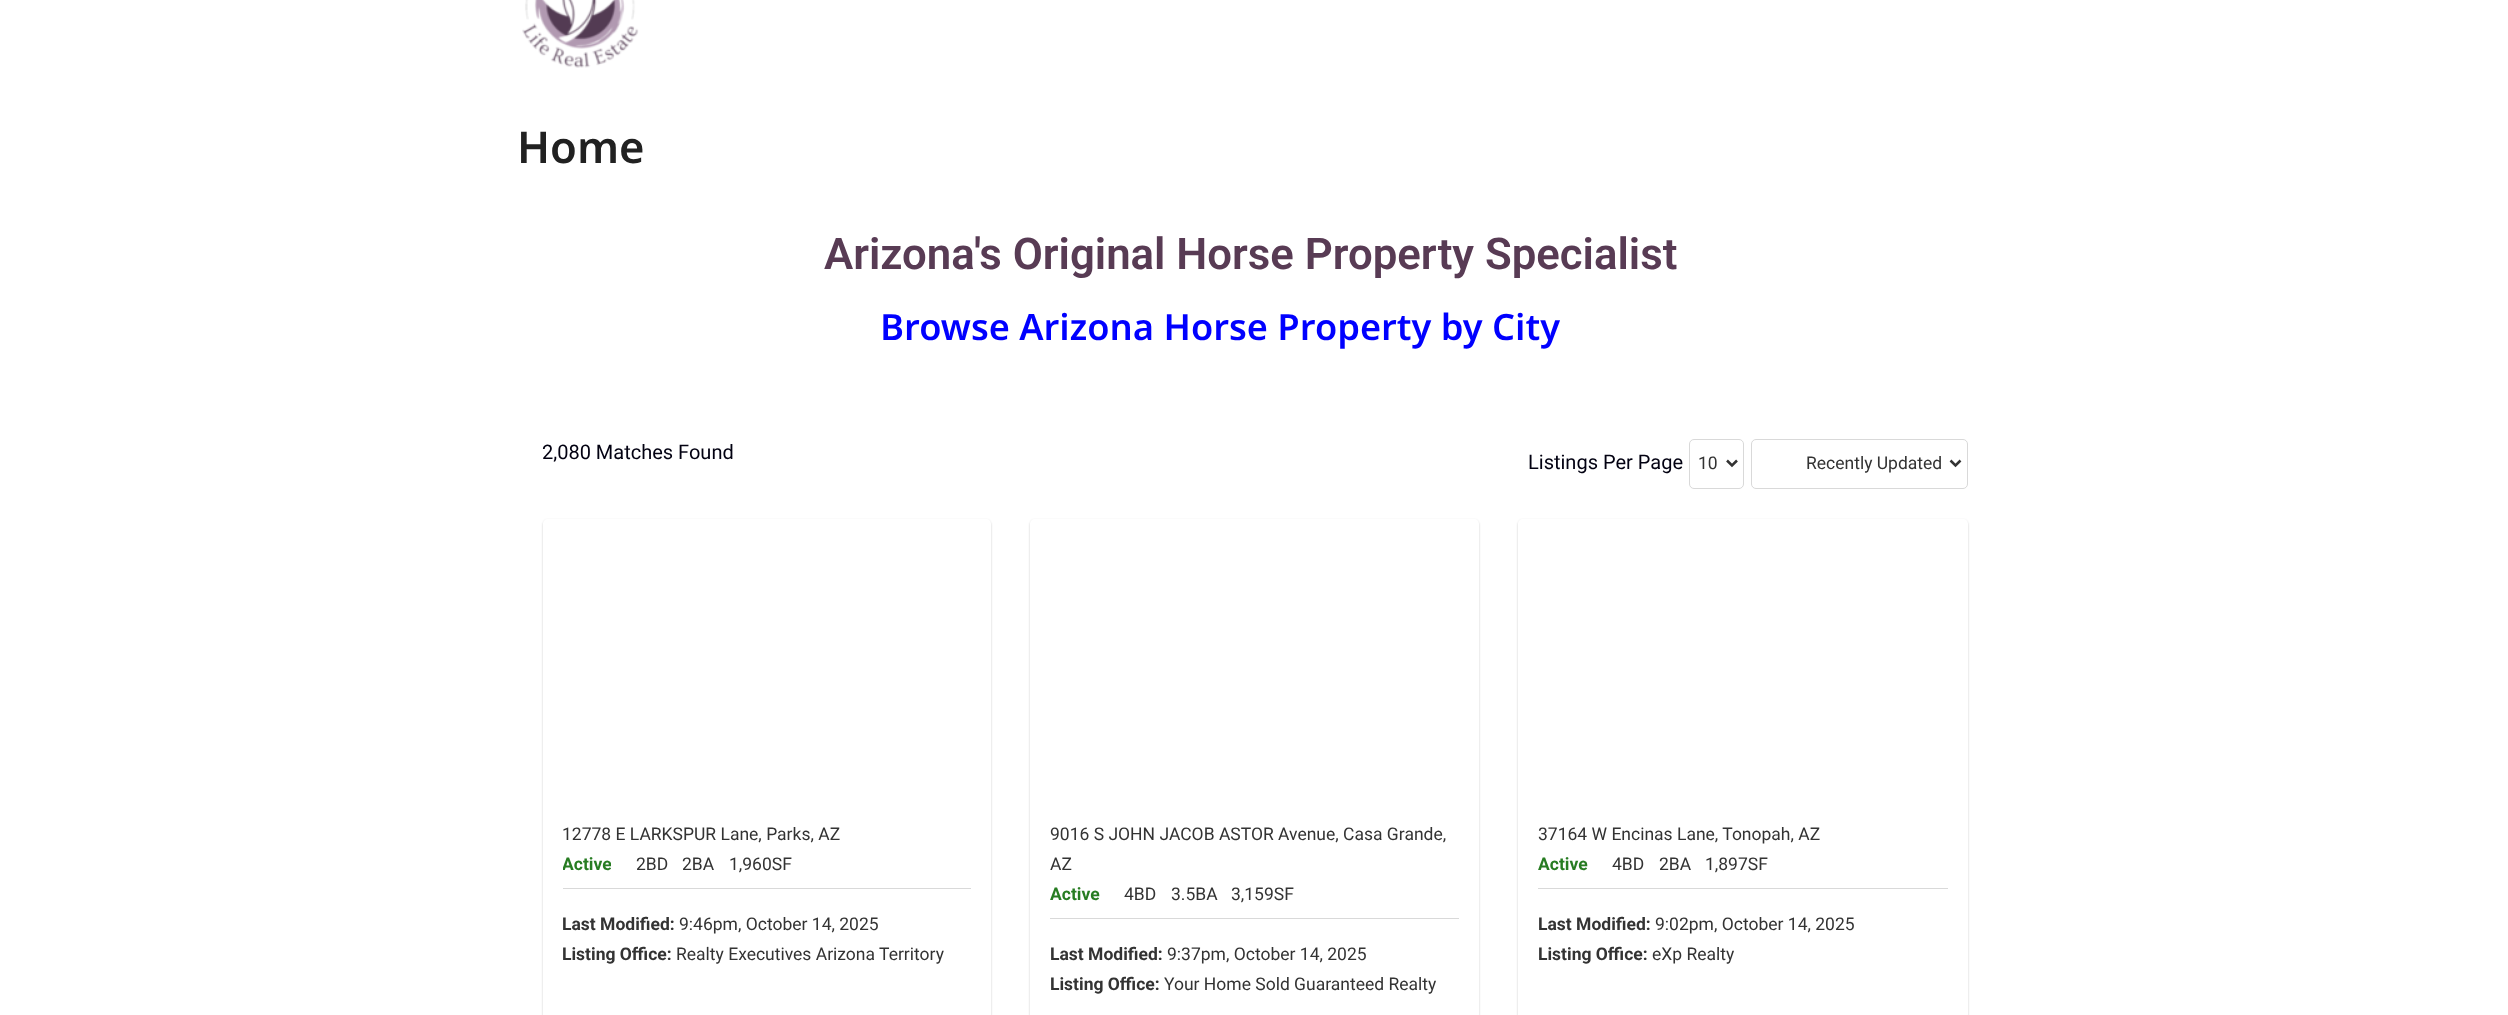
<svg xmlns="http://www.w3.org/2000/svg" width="2508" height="1015">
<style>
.a{font:600 43.75px Noto Sans;fill:#212121}
.b{font:600 43.75px Roboto;fill:#583b54}
.c{font:600 36.25px Noto Sans;fill:#00f}
.d{font:20px Roboto;fill:#020111}
.e{font:17.5px Roboto;fill:#333}
.f{font:bold 17.5px Roboto;fill:#277c22}
.g{font:bold 17.5px Roboto;fill:#333}
</style>
<defs>
<clipPath id="clip1"><path d="M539 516h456v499h-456zm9 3h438c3 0 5 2 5 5v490c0 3-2 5-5 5h-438c-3 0-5-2-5-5v-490c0-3 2-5 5-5z" clip-rule="evenodd"/></clipPath>
<clipPath id="clip2"><path d="M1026 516h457v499h-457zm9 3h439c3 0 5 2 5 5v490c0 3-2 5-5 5h-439c-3 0-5-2-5-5v-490c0-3 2-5 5-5z" clip-rule="evenodd"/></clipPath>
<clipPath id="clip3"><path d="M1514 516h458v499h-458zm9 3h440c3 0 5 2 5 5v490c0 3-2 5-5 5h-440c-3 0-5-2-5-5v-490c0-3 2-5 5-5z" clip-rule="evenodd"/></clipPath>
<clipPath id="clip4"><path d="M563 849h48v30H563z"/></clipPath>
</defs>
<rect width="100%" height="100%" fill="#fff"/>
<image href="1.png" x="522" y="0" width="117" height="68"/>
<rect fill="none" stroke="#d9d9d9" x="1689.5" y="439.5" width="54" height="49" rx="4.5"/>
<path fill="none" stroke="#333" stroke-width="2.5" d="M1727 460.5l5 5l5-5"/>
<rect fill="none" stroke="#d9d9d9" x="1751.5" y="439.5" width="216" height="49" rx="4.5"/>
<path fill="none" stroke="#333" stroke-width="2.5" d="M1950.5 460.5l5 5l5-5"/>
<g clip-path="url(#clip1)">
<rect fill="#00000033" filter="blur(1px)" x="543" y="520" width="448" height="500" rx="5"/>
</g>
<path fill="#d9d9d9" d="M563 888h408v1H563z"/>
<g clip-path="url(#clip2)">
<rect fill="#00000033" filter="blur(1px)" x="1030" y="520" width="449" height="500" rx="5"/>
</g>
<path fill="#d9d9d9" d="M1050 918h409v1H1050z"/>
<g clip-path="url(#clip3)">
<rect fill="#00000033" filter="blur(1px)" x="1518" y="520" width="450" height="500" rx="5"/>
</g>
<path fill="#d9d9d9" d="M1538 888h410v1H1538z"/>
<text class="a" x="517" y="163">Home</text>
<text class="b" x="824" y="269">Arizona's Original Horse Property Specialist</text>
<text class="c" x="880" y="340">Browse Arizona Horse Property by City</text>
<text class="d" x="542" y="459">2,080 Matches Found</text>
<text class="d" x="1528" y="469">Listings Per Page</text>
<text class="e" x="1698" y="469">10</text>
<text class="e" x="1806" y="469">Recently Updated</text>
<text class="e" x="562" y="840">12778 E LARKSPUR Lane, Parks, AZ</text>
<g clip-path="url(#clip4)">
<text class="f" x="562" y="870">Active</text>
</g>
<text class="e" x="636" y="870">2BD</text>
<text class="e" x="682" y="870">2BA</text>
<text class="e" x="729" y="870">1,960SF</text>
<text class="g" x="562" y="930">Last Modified:</text>
<text class="e" x="679" y="930">9:46pm, October 14, 2025</text>
<text class="g" x="562" y="960">Listing Office:</text>
<text class="e" x="676" y="960">Realty Executives Arizona Territory</text>
<text class="e" x="1050" y="840">9016 S JOHN JACOB ASTOR Avenue, Casa Grande,</text>
<text class="e" x="1050" y="870">AZ</text>
<text class="f" x="1050" y="900">Active</text>
<text class="e" x="1124" y="900">4BD</text>
<text class="e" x="1171" y="900">3.5BA</text>
<text class="e" x="1231" y="900">3,159SF</text>
<text class="g" x="1050" y="960">Last Modified:</text>
<text class="e" x="1167" y="960">9:37pm, October 14, 2025</text>
<text class="g" x="1050" y="990">Listing Office:</text>
<text class="e" x="1164" y="990">Your Home Sold Guaranteed Realty</text>
<text class="e" x="1538" y="840">37164 W Encinas Lane, Tonopah, AZ</text>
<text class="f" x="1538" y="870">Active</text>
<text class="e" x="1612" y="870">4BD</text>
<text class="e" x="1659" y="870">2BA</text>
<text class="e" x="1705" y="870">1,897SF</text>
<text class="g" x="1538" y="930">Last Modified:</text>
<text class="e" x="1655" y="930">9:02pm, October 14, 2025</text>
<text class="g" x="1538" y="960">Listing Office:</text>
<text class="e" x="1652" y="960">eXp Realty</text>
</svg>
